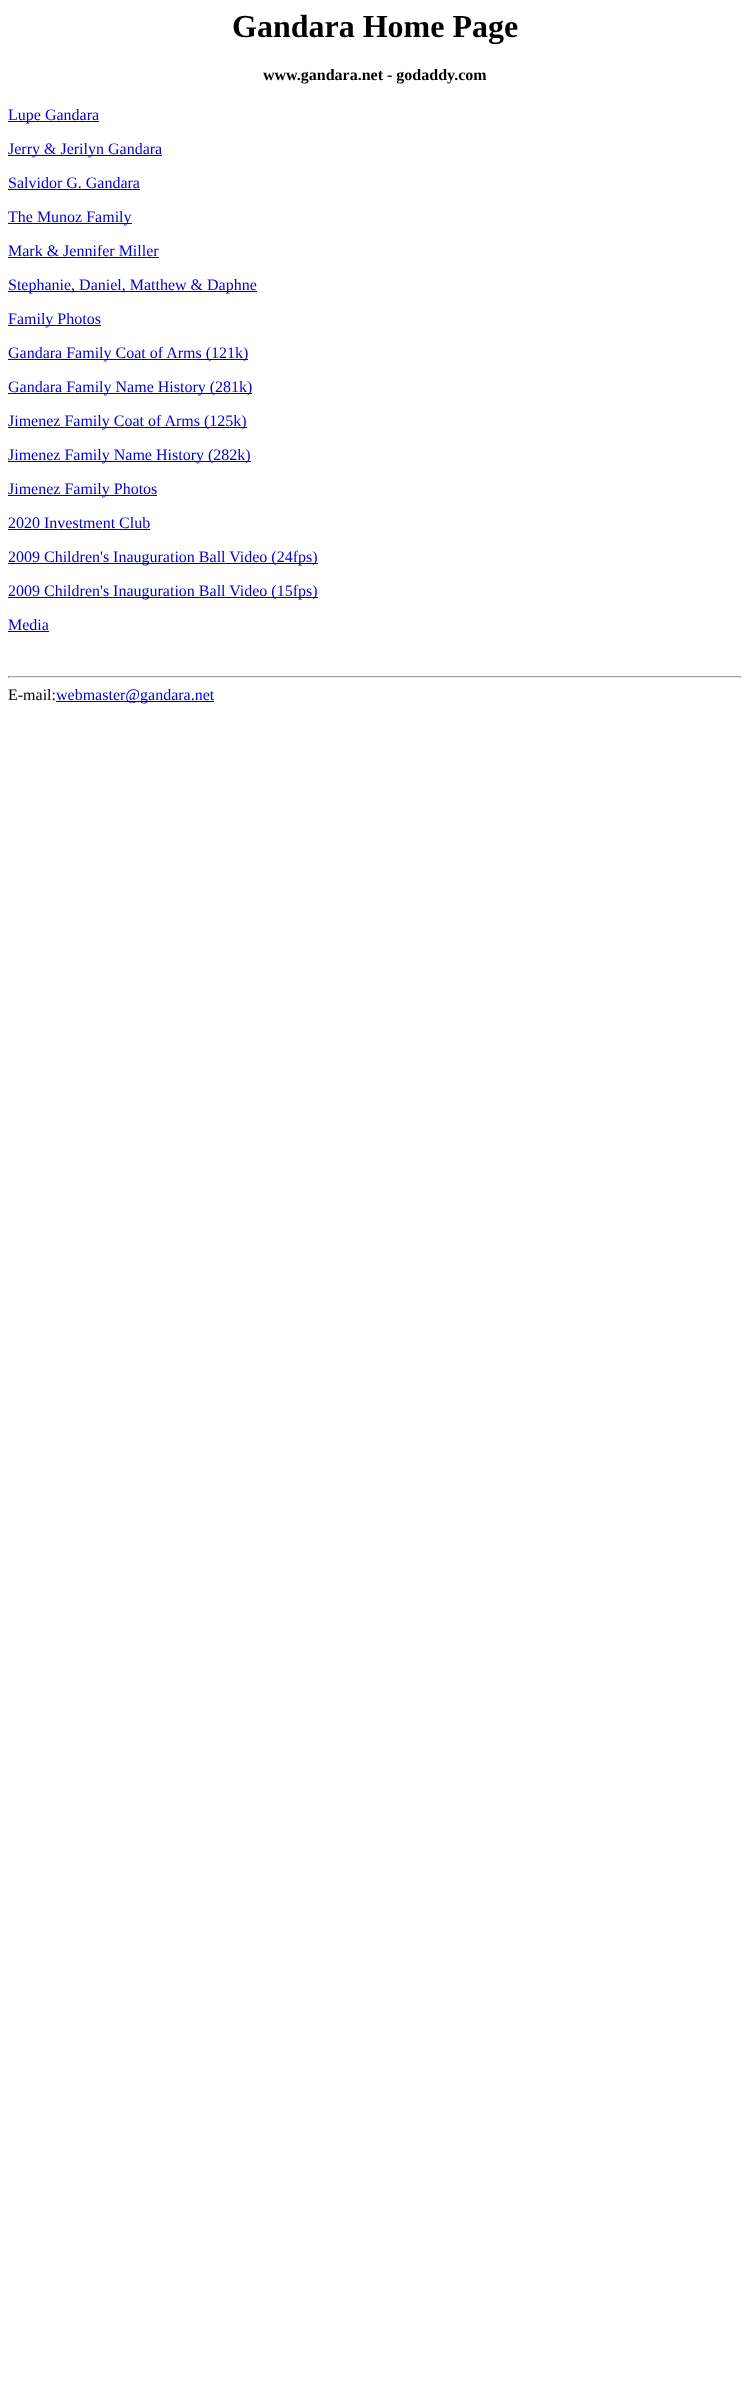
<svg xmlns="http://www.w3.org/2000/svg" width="750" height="2390">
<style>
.a{font:bold 32px Liberation Serif;fill:#000}
.b{font:bold 16px Liberation Serif;fill:#000}
.c{font:16px Liberation Serif;fill:#0000cd}
.d{font:16px Liberation Serif;fill:#000}
</style>
<rect width="100%" height="100%" fill="#fff"/>
<path fill="#0000cd" d="M8 121h91v1H8z"/>
<path fill="#0000cd" d="M8 155h154v1H8z"/>
<path fill="#0000cd" d="M8 189h132v1H8z"/>
<path fill="#0000cd" d="M8 223h124v1H8z"/>
<path fill="#0000cd" d="M8 257h151v1H8z"/>
<path fill="#0000cd" d="M8 291h249v1H8z"/>
<path fill="#0000cd" d="M8 325h93v1H8z"/>
<path fill="#0000cd" d="M8 359h240v1H8z"/>
<path fill="#0000cd" d="M8 393h244v1H8z"/>
<path fill="#0000cd" d="M8 427h239v1H8z"/>
<path fill="#0000cd" d="M8 461h243v1H8z"/>
<path fill="#0000cd" d="M8 495h149v1H8z"/>
<path fill="#0000cd" d="M8 529h142v1H8z"/>
<path fill="#0000cd" d="M8 563h310v1H8z"/>
<path fill="#0000cd" d="M8 597h310v1H8z"/>
<path fill="#0000cd" d="M8 631h41v1H8z"/>
<path fill="#9f9f9f" d="M8 676h734v1H8z"/>
<path fill="#eee" d="M741 676h1v2H741z"/>
<path fill="#eee" d="M8 677h734v1H8z"/>
<path fill="#9f9f9f" d="M8 676h1v2H8z"/>
<path fill="#0000cd" d="M56 701h158v1H56z"/>
<text class="a" x="232" y="37">Gandara Home Page</text>
<text class="b" x="263" y="80">www.gandara.net - godaddy.com</text>
<text class="c" x="8" y="120">Lupe Gandara</text>
<text class="c" x="8" y="154">Jerry &amp; Jerilyn Gandara</text>
<text class="c" x="8" y="188">Salvidor G. Gandara</text>
<text class="c" x="8" y="222">The Munoz Family</text>
<text class="c" x="8" y="256">Mark &amp; Jennifer Miller</text>
<text class="c" x="8" y="290">Stephanie, Daniel, Matthew &amp; Daphne</text>
<text class="c" x="8" y="324">Family Photos</text>
<text class="c" x="8" y="358">Gandara Family Coat of Arms (121k)</text>
<text class="c" x="8" y="392">Gandara Family Name History (281k)</text>
<text class="c" x="8" y="426">Jimenez Family Coat of Arms (125k)</text>
<text class="c" x="8" y="460">Jimenez Family Name History (282k)</text>
<text class="c" x="8" y="494">Jimenez Family Photos</text>
<text class="c" x="8" y="528">2020 Investment Club</text>
<text class="c" x="8" y="562">2009 Children's Inauguration Ball Video (24fps)</text>
<text class="c" x="8" y="596">2009 Children's Inauguration Ball Video (15fps)</text>
<text class="c" x="8" y="630">Media</text>
<text class="d" x="8" y="700">E-mail:</text>
<text class="c" x="56" y="700">webmaster@gandara.net</text>
</svg>
